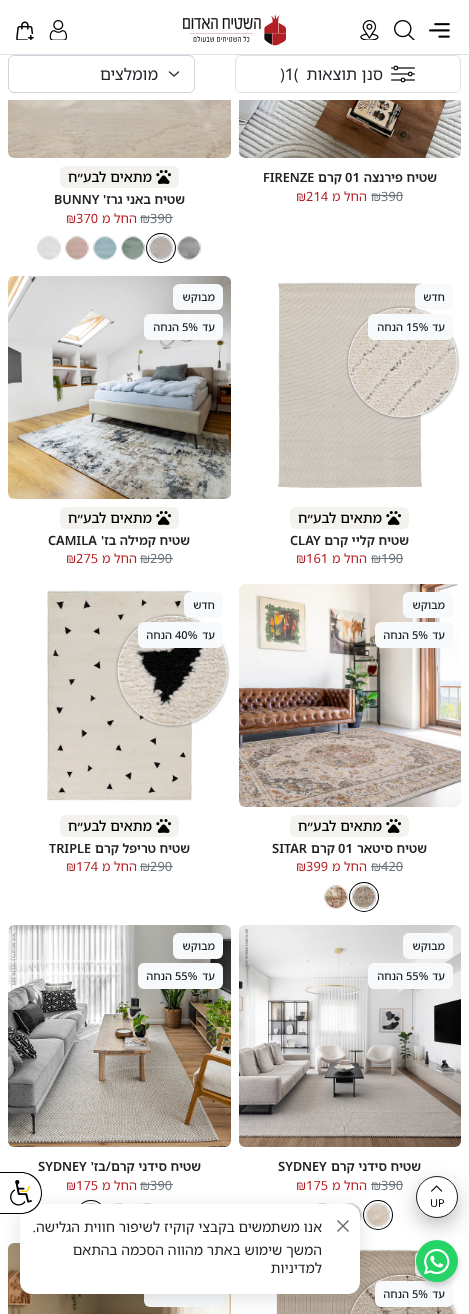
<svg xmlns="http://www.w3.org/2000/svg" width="469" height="1314">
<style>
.a{font:16px Noto Sans Hebrew;direction:rtl;fill:#212529}
.b{font:16px Noto Sans Hebrew;fill:#212529}
.c{font:600 12.75px Noto Sans Hebrew;direction:rtl;fill:#222}
.d{font:600 12.75px Noto Sans Hebrew;fill:#222}
.e{font:12.75px Noto Sans Hebrew;fill:#6c757d}
.f{font:12.75px Noto Sans Hebrew;direction:rtl;fill:#b21e23}
.g{font:12.75px Noto Sans Hebrew;fill:#b21e23}
.h{font:500 14px Noto Sans Hebrew;direction:rtl;fill:#000}
.i{font:500 11px Noto Sans Hebrew;direction:rtl;fill:#212529}
.j{font:500 11px Noto Sans Hebrew;fill:#212529}
.k{font:11px Noto Sans Hebrew;fill:#000}
.l{font:14px Noto Sans Hebrew;direction:rtl;fill:#222}
</style>
<rect width="100%" height="100%" fill="#fff"/>
<path fill="#dee2e6" d="M0 54h469v1H0z"/>
<image href="1.png" x="183" y="14" width="103" height="32"/>
<image href="2.png" x="429" y="23" width="21" height="15"/>
<image href="3.png" x="394" y="20" width="21" height="20"/>
<image href="4.png" x="360" y="20" width="19" height="20"/>
<image href="5.png" x="49" y="20" width="19" height="20"/>
<image href="6.png" x="16" y="21" width="18" height="19"/>
<rect fill="none" stroke="#dee2e6" x="235.5" y="55.5" width="225" height="37" rx="5.5"/>
<image href="7.png" x="391" y="65" width="24" height="18"/>
<path fill="none" stroke="#343a40" stroke-width="1.5" stroke-linecap="round" stroke-linejoin="round" d="M169.5 72l4.5 4l4.5-4"/>
<rect fill="none" stroke="#ced4da" x="8.5" y="55.5" width="186" height="37" rx="5.5"/>
<image href="8.png" x="239" y="100" width="222" height="58"/>
<path fill="#6c757d" d="M371 195h32v1H371z"/>
<image href="9.png" x="8" y="100" width="223" height="58"/>
<rect fill="#f4f2ee" x="60" y="166" width="119" height="22" rx="6"/>
<image href="10.png" x="156" y="170" width="15" height="14"/>
<path fill="#6c757d" d="M140 217h33v1H140z"/>
<image href="11.png" x="177" y="236" width="24" height="24"/>
<circle fill="none" stroke="#dee2e6" cx="189" cy="248" r="11.5"/>
<circle fill="none" stroke="#000" stroke-width="3" cx="161" cy="248" r="13.5"/>
<circle fill="none" stroke="#fff" stroke-width="2" cx="161" cy="248" r="13"/>
<image href="12.png" x="149" y="236" width="24" height="24"/>
<circle fill="none" stroke="#dee2e6" cx="161" cy="248" r="11.5"/>
<image href="13.png" x="121" y="236" width="24" height="24"/>
<circle fill="none" stroke="#dee2e6" cx="133" cy="248" r="11.5"/>
<image href="14.png" x="93" y="236" width="24" height="24"/>
<circle fill="none" stroke="#dee2e6" cx="105" cy="248" r="11.5"/>
<image href="15.png" x="65" y="236" width="24" height="24"/>
<circle fill="none" stroke="#dee2e6" cx="77" cy="248" r="11.5"/>
<image href="16.png" x="37" y="236" width="24" height="24"/>
<circle fill="none" stroke="#dee2e6" cx="49" cy="248" r="11.5"/>
<image href="17.png" x="278" y="282" width="182" height="207"/>
<rect fill="#f8f9fa" x="415" y="284" width="38" height="26" rx="6"/>
<rect fill="#f8f9fa" x="368" y="314" width="85" height="26" rx="6"/>
<rect fill="#f4f2ee" x="290" y="507" width="119" height="22" rx="6"/>
<image href="10.png" x="386" y="511" width="15" height="14"/>
<path fill="#6c757d" d="M371 558h32v1H371z"/>
<image href="18.png" x="8" y="276" width="223" height="223"/>
<rect fill="#f8f9fa" x="173" y="284" width="50" height="26" rx="6"/>
<rect fill="#f8f9fa" x="144" y="314" width="79" height="26" rx="6"/>
<rect fill="#f4f2ee" x="60" y="507" width="119" height="22" rx="6"/>
<image href="10.png" x="156" y="511" width="15" height="14"/>
<path fill="#6c757d" d="M140 558h33v1H140z"/>
<image href="19.png" x="239" y="584" width="222" height="223"/>
<rect fill="#f8f9fa" x="403" y="592" width="50" height="26" rx="6"/>
<rect fill="#f8f9fa" x="375" y="622" width="78" height="26" rx="6"/>
<rect fill="#f4f2ee" x="290" y="815" width="119" height="22" rx="6"/>
<image href="10.png" x="386" y="819" width="15" height="14"/>
<path fill="#6c757d" d="M371 866h32v1H371z"/>
<circle fill="none" stroke="#000" stroke-width="3" cx="364" cy="897" r="13.5"/>
<circle fill="none" stroke="#fff" stroke-width="2" cx="364" cy="897" r="13"/>
<image href="20.png" x="352" y="885" width="24" height="24"/>
<circle fill="none" stroke="#dee2e6" cx="364" cy="897" r="11.5"/>
<image href="21.png" x="324" y="885" width="24" height="24"/>
<circle fill="none" stroke="#dee2e6" cx="336" cy="897" r="11.5"/>
<image href="22.png" x="47" y="590" width="183" height="211"/>
<rect fill="#f8f9fa" x="184" y="592" width="39" height="26" rx="6"/>
<rect fill="#f8f9fa" x="138" y="622" width="85" height="26" rx="6"/>
<rect fill="#f4f2ee" x="60" y="815" width="119" height="22" rx="6"/>
<image href="10.png" x="156" y="819" width="15" height="14"/>
<path fill="#6c757d" d="M140 866h33v1H140z"/>
<image href="23.png" x="239" y="925" width="222" height="222"/>
<rect fill="#f8f9fa" x="403" y="933" width="50" height="26" rx="6"/>
<rect fill="#f8f9fa" x="368" y="963" width="85" height="26" rx="6"/>
<path fill="#6c757d" d="M371 1184h32v1H371z"/>
<circle fill="none" stroke="#000" stroke-width="3" cx="378" cy="1215" r="13.5"/>
<circle fill="none" stroke="#fff" stroke-width="2" cx="378" cy="1215" r="13"/>
<image href="24.png" x="366" y="1203" width="24" height="24"/>
<circle fill="none" stroke="#dee2e6" cx="378" cy="1215" r="11.5"/>
<image href="25.png" x="345" y="1203" width="17" height="19"/>
<circle fill="none" stroke="#dee2e6" cx="350" cy="1215" r="11.5"/>
<image href="26.png" x="317" y="1203" width="10" height="1"/>
<circle fill="none" stroke="#dee2e6" cx="322" cy="1215" r="11.5"/>
<image href="27.png" x="8" y="925" width="223" height="222"/>
<rect fill="#f8f9fa" x="173" y="933" width="50" height="26" rx="6"/>
<rect fill="#f8f9fa" x="138" y="963" width="85" height="26" rx="6"/>
<path fill="#6c757d" d="M140 1184h33v1H140z"/>
<image href="28.png" x="142" y="1203" width="10" height="1"/>
<circle fill="none" stroke="#dee2e6" cx="147" cy="1215" r="11.5"/>
<image href="29.png" x="114" y="1203" width="10" height="1"/>
<circle fill="none" stroke="#dee2e6" cx="119" cy="1215" r="11.5"/>
<circle fill="none" stroke="#000" stroke-width="3" cx="91" cy="1215" r="13.5"/>
<circle fill="none" stroke="#fff" stroke-width="2" cx="91" cy="1215" r="13"/>
<image href="30.png" x="86" y="1203" width="10" height="1"/>
<circle fill="none" stroke="#dee2e6" cx="91" cy="1215" r="11.5"/>
<image href="31.png" x="276" y="1249" width="182" height="65"/>
<rect fill="#f8f9fa" x="415" y="1251" width="38" height="26" rx="6"/>
<rect fill="#f8f9fa" x="375" y="1281" width="78" height="26" rx="6"/>
<image href="32.png" x="8" y="1243" width="223" height="71"/>
<rect fill="#f8f9fa" x="144" y="1281" width="79" height="26" rx="6"/>
<rect fill="#0000001f" filter="blur(9px)" x="20" y="1208" width="340" height="90" rx="12"/>
<rect fill="#fff" x="20" y="1204" width="340" height="90" rx="12"/>
<path fill="#fff" d="M0 1172h21c11.5 0 21 9.5 21 21c0 11.5-9.5 21-21 21h-21z"/>
<image href="33.png" x="10" y="1180" width="22" height="26"/>
<path fill="#000" fill-rule="evenodd" d="M0 1172h21c12 0 21 9 21 21c0 12-9 21-21 21h-21zm0 1h21c11 0 20 9 20 20c0 11-9 20-20 20h-21z"/>
<rect fill="#00000040" filter="blur(10px)" x="416" y="1184" width="42" height="42" rx="21"/>
<circle fill="#fff" stroke="#1e1e1e" cx="437" cy="1197" r="20.5"/>
<image href="34.png" x="431" y="1185" width="12" height="7"/>
<rect fill="#00000033" filter="blur(3px)" x="416" y="1244" width="42" height="42" rx="21"/>
<circle fill="#25d366" cx="437" cy="1261" r="21"/>
<image href="35.png" x="424" y="1249" width="26" height="25"/>
<path fill="none" stroke="#666" stroke-width="1.4" d="M337.5 1220.5l11 11m0-11l-11 11"/>
<text class="a" x="383" y="80">סנן תוצאות</text>
<text class="b" x="280" y="80">)1(</text>
<text class="a" x="158" y="80">מומלצים</text>
<text class="c" x="437" y="182">שטיח פירנצה</text>
<text class="d" x="345" y="182">01</text>
<text class="c" x="342" y="182">קרם</text>
<text class="d" x="263" y="182">FIRENZE</text>
<text class="e" x="371" y="201">₪390</text>
<text class="f" x="367" y="201">החל מ</text>
<text class="g" x="296" y="201">₪214</text>
<text class="h" x="152" y="182">מתאים לבע״ח</text>
<text class="c" x="185" y="204">שטיח באני גרז'</text>
<text class="d" x="54" y="204">BUNNY</text>
<text class="e" x="140" y="223">₪390</text>
<text class="f" x="137" y="223">החל מ</text>
<text class="g" x="66" y="223">₪370</text>
<text class="i" x="445" y="301">חדש</text>
<text class="i" x="445" y="331">עד</text>
<text class="j" x="406" y="331">15%</text>
<text class="i" x="403" y="331">הנחה</text>
<text class="h" x="382" y="523">מתאים לבע״ח</text>
<text class="c" x="409" y="545">שטיח קליי קרם</text>
<text class="d" x="290" y="545">CLAY</text>
<text class="e" x="371" y="563">₪190</text>
<text class="f" x="367" y="563">החל מ</text>
<text class="g" x="296" y="563">₪161</text>
<text class="i" x="215" y="301">מבוקש</text>
<text class="i" x="215" y="331">עד</text>
<text class="j" x="182" y="331">5%</text>
<text class="i" x="179" y="331">הנחה</text>
<text class="h" x="152" y="523">מתאים לבע״ח</text>
<text class="c" x="190" y="545">שטיח קמילה בז'</text>
<text class="d" x="48" y="545">CAMILA</text>
<text class="e" x="140" y="563">₪290</text>
<text class="f" x="137" y="563">החל מ</text>
<text class="g" x="66" y="563">₪275</text>
<text class="i" x="445" y="609">מבוקש</text>
<text class="i" x="445" y="639">עד</text>
<text class="j" x="412" y="639">5%</text>
<text class="i" x="409" y="639">הנחה</text>
<text class="h" x="382" y="831">מתאים לבע״ח</text>
<text class="c" x="427" y="853">שטיח סיטאר</text>
<text class="d" x="338" y="853">01</text>
<text class="c" x="335" y="853">קרם</text>
<text class="d" x="272" y="853">SITAR</text>
<text class="e" x="371" y="871">₪420</text>
<text class="f" x="367" y="871">החל מ</text>
<text class="g" x="296" y="871">₪399</text>
<text class="i" x="215" y="609">חדש</text>
<text class="i" x="215" y="639">עד</text>
<text class="j" x="175" y="639">40%</text>
<text class="i" x="172" y="639">הנחה</text>
<text class="h" x="152" y="831">מתאים לבע״ח</text>
<text class="c" x="190" y="853">שטיח טריפל קרם</text>
<text class="d" x="49" y="853">TRIPLE</text>
<text class="e" x="140" y="871">₪290</text>
<text class="f" x="137" y="871">החל מ</text>
<text class="g" x="66" y="871">₪174</text>
<text class="i" x="445" y="950">מבוקש</text>
<text class="i" x="445" y="980">עד</text>
<text class="j" x="406" y="980">55%</text>
<text class="i" x="403" y="980">הנחה</text>
<text class="c" x="421" y="1171">שטיח סידני קרם</text>
<text class="d" x="278" y="1171">SYDNEY</text>
<text class="e" x="371" y="1190">₪390</text>
<text class="f" x="367" y="1190">החל מ</text>
<text class="g" x="296" y="1190">₪175</text>
<text class="i" x="215" y="950">מבוקש</text>
<text class="i" x="215" y="980">עד</text>
<text class="j" x="175" y="980">55%</text>
<text class="i" x="172" y="980">הנחה</text>
<text class="c" x="201" y="1171">שטיח סידני קרם/בז'</text>
<text class="d" x="38" y="1171">SYDNEY</text>
<text class="e" x="140" y="1190">₪390</text>
<text class="f" x="137" y="1190">החל מ</text>
<text class="g" x="66" y="1190">₪175</text>
<text class="i" x="445" y="1298">עד</text>
<text class="j" x="412" y="1298">5%</text>
<text class="i" x="409" y="1298">הנחה</text>
<text class="k" x="430" y="1207">UP</text>
<text class="l" x="322" y="1232">אנו משתמשים בקבצי קוקיז לשיפור חווית הגלישה.</text>
<text class="l" x="322" y="1255">המשך שימוש באתר מהווה הסכמה בהתאם</text>
<text class="l" x="322" y="1273">למדיניות</text>
</svg>
